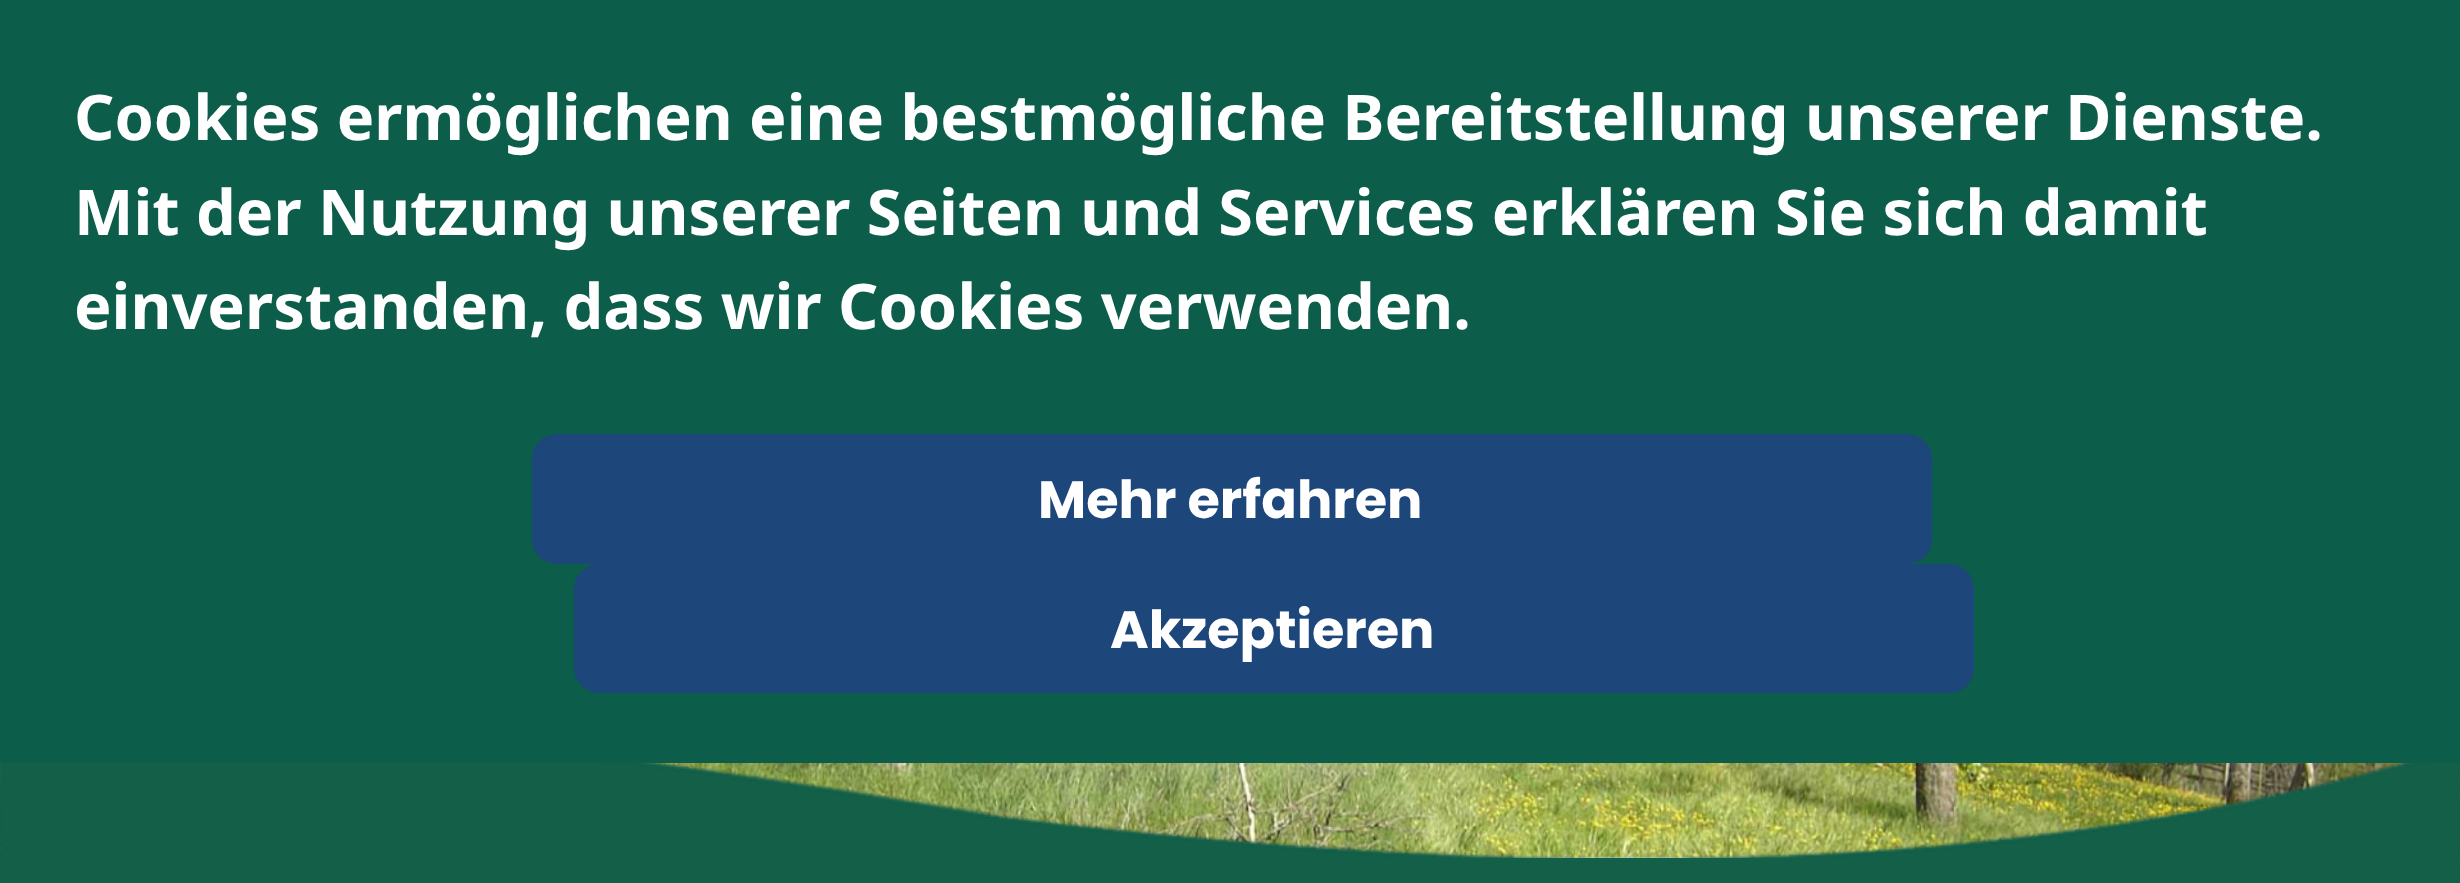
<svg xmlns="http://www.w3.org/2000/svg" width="2460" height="883">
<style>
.a{font:bold 63px Noto Sans;fill:#fff}
.b{font:bold 52.5px Poppins;fill:#fff}
</style>
<rect width="100%" height="100%" fill="#fff"/>
<path fill="#0c5d4a" d="M0 0h2460v763H0z"/>
<rect fill="#1d467a" x="532" y="434" width="1400" height="130" rx="25"/>
<rect fill="#1d467a" x="574" y="564" width="1400" height="129" rx="25"/>
<image href="1.png" x="0" y="763" width="2460" height="95"/>
<image href="2.png" x="0" y="763" width="2460" height="95"/>
<path fill="#145f48" d="M0 858h2460v25H0z"/>
<text class="a" x="74" y="140">Cookies ermöglichen eine bestmögliche Bereitstellung unserer Dienste.</text>
<text class="a" x="74" y="235">Mit der Nutzung unserer Seiten und Services erklären Sie sich damit</text>
<text class="a" x="74" y="329">einverstanden, dass wir Cookies verwenden.</text>
<text class="b" x="1038" y="518">Mehr erfahren</text>
<text class="b" x="1110" y="648">Akzeptieren</text>
</svg>
